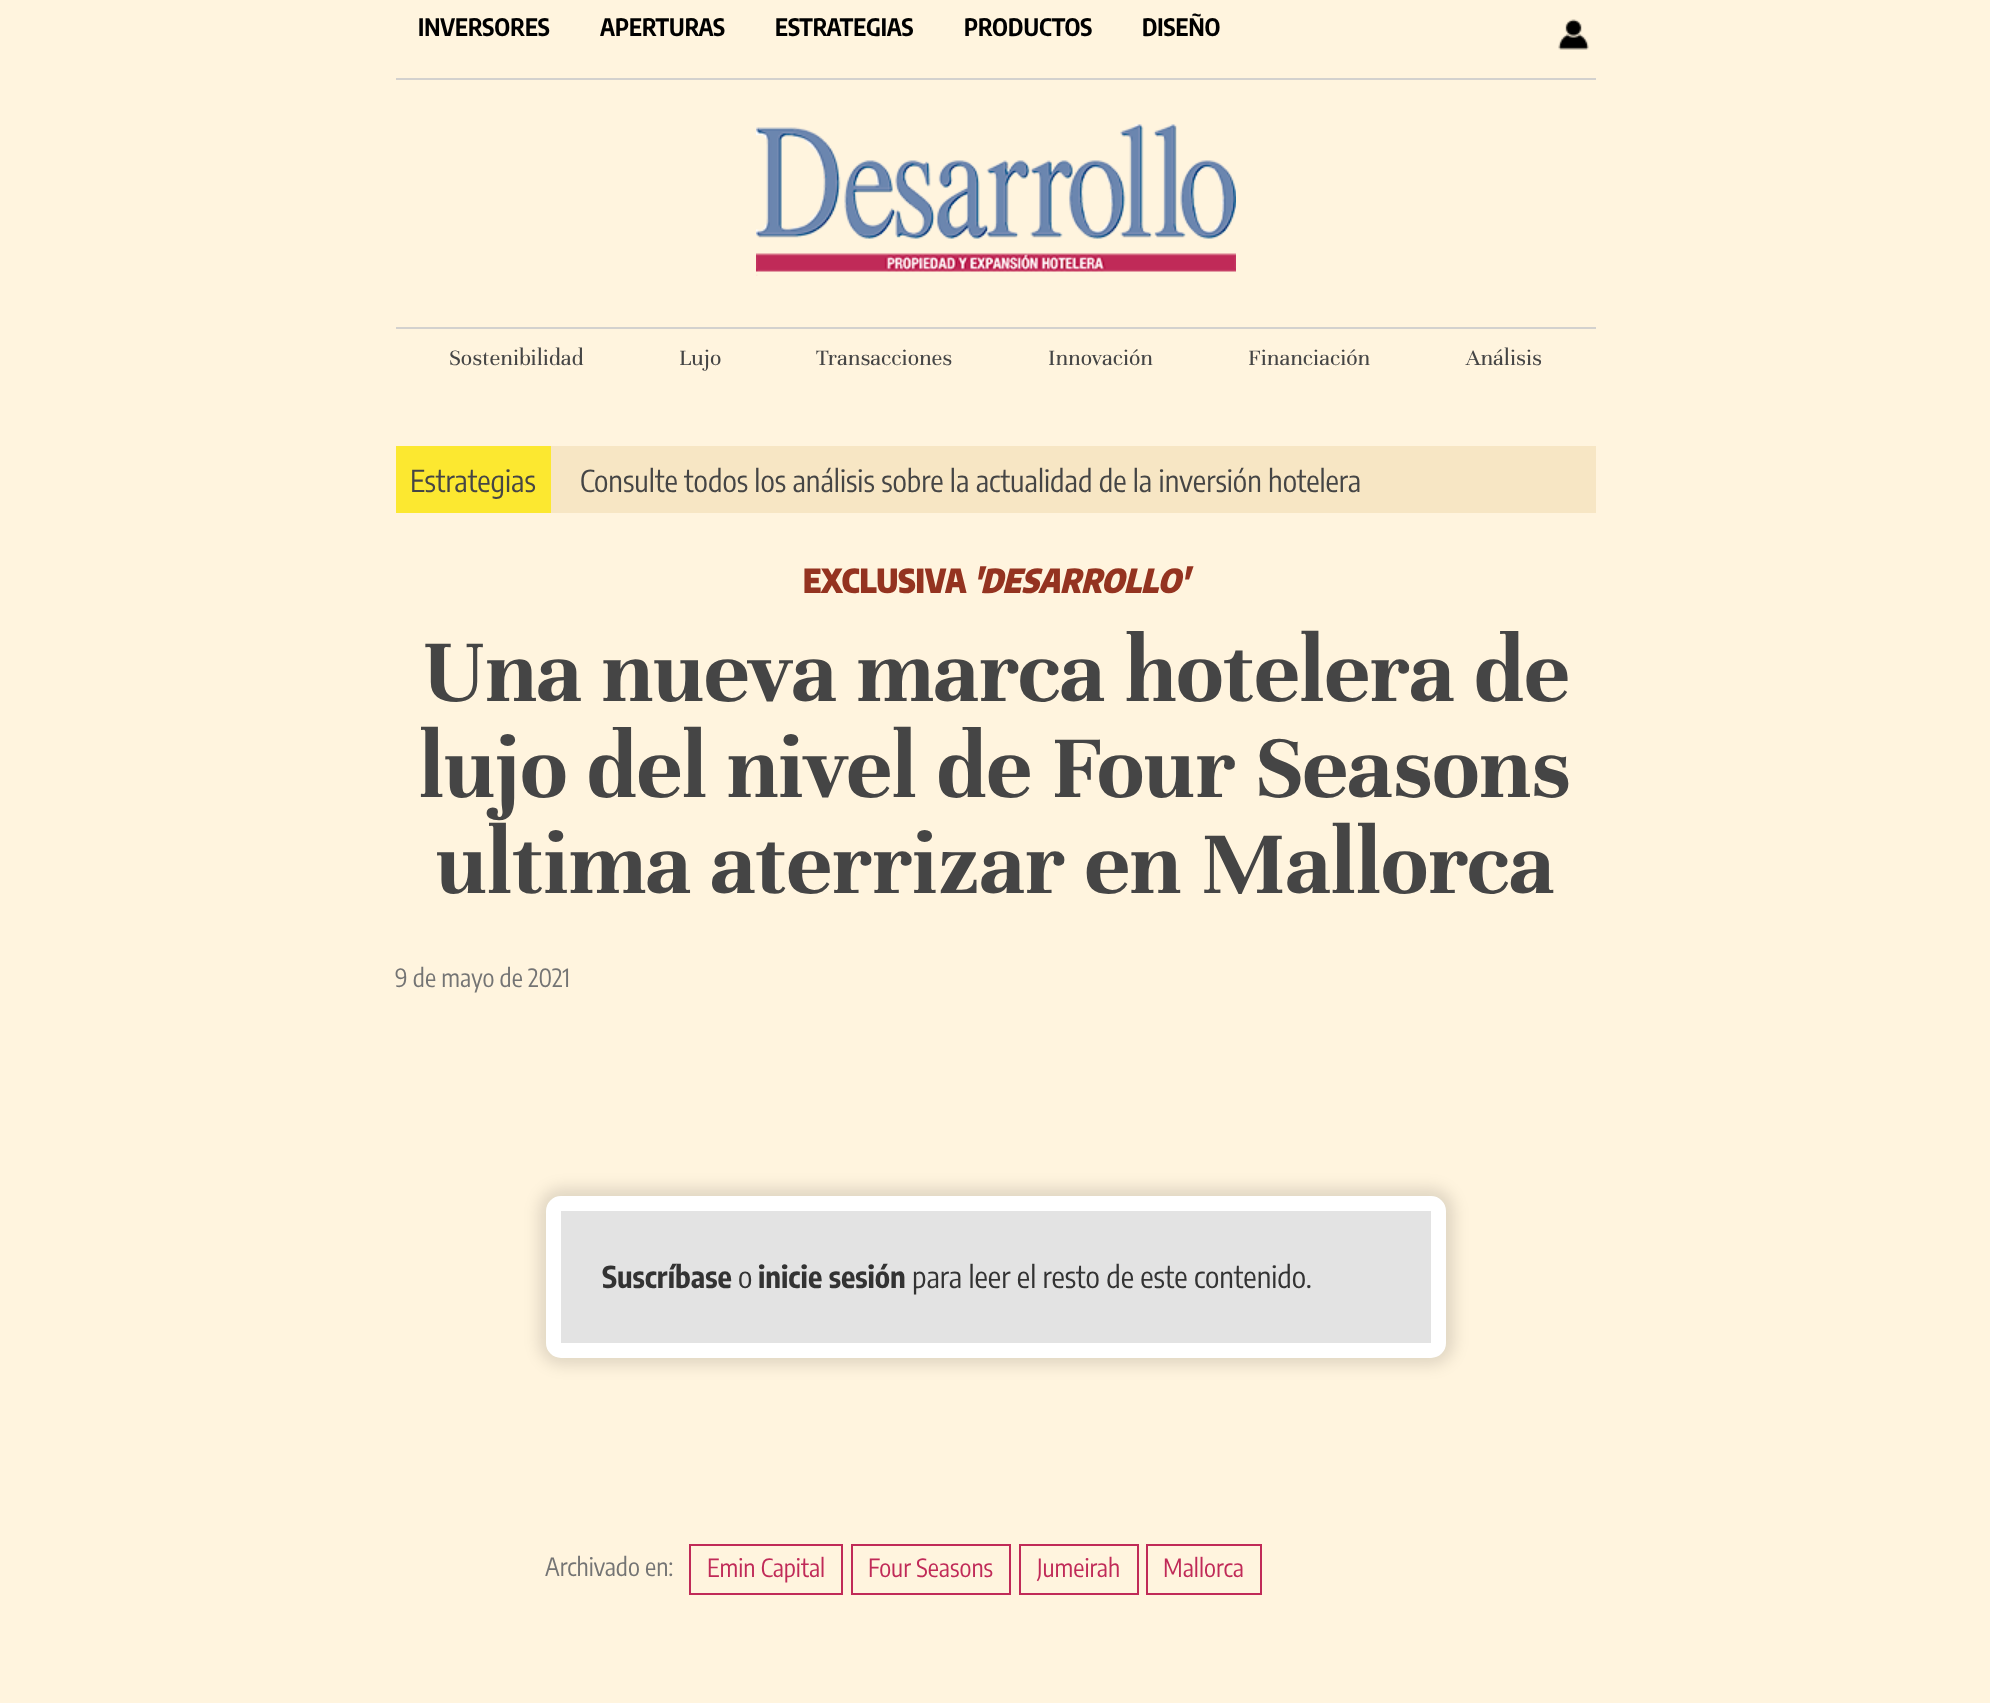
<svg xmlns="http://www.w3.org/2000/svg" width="1990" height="1703">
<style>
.a{font:bold 24px Encode Sans Condensed;fill:#000}
.b{font:24px Unna;fill:#454545}
.c{font:30px Encode Sans Condensed;fill:#454545}
.d{font:900 33px Encode Sans Condensed;fill:#943320}
.e{font:italic 900 33px Encode Sans Condensed;fill:#943320}
.f{font:bold 96px Unna;fill:#454545}
.g{font:25px Encode Sans Condensed;fill:#747474}
.h{font:bold 30px Encode Sans Condensed;fill:#333}
.i{font:30px Encode Sans Condensed;fill:#333}
.j{font:25px Encode Sans Condensed;fill:#c02a58}
</style>
<rect width="100%" height="100%" fill="#fff4de"/>
<path fill="#d3d1ce" d="M396 78h1200v2H396z"/>
<image href="1.png" x="1558" y="19" width="31" height="31"/>
<image href="2.png" x="756" y="124" width="480" height="152"/>
<path fill="#d3d1ce" d="M396 327h1200v2H396z"/>
<path fill="#f7e6c4" d="M551 446h1045v67H551z"/>
<path fill="#fce830" d="M396 446h155v67H396z"/>
<rect fill="#0000001f" filter="blur(7.5px)" x="539" y="1188" width="915" height="177" rx="23"/>
<rect fill="#e3e3e3" stroke="#fff" stroke-width="15" x="553.5" y="1203.5" width="885" height="147" rx="7.5"/>
<path fill="none" stroke="#c02a58" stroke-width="2" d="M690 1545h152v49H690z"/>
<path fill="none" stroke="#c02a58" stroke-width="2" d="M852 1545h158v49H852z"/>
<path fill="none" stroke="#c02a58" stroke-width="2" d="M1020 1545h118v49H1020z"/>
<path fill="none" stroke="#c02a58" stroke-width="2" d="M1147 1545h114v49H1147z"/>
<text class="a" x="418" y="36">INVERSORES</text>
<text class="a" x="600" y="36">APERTURAS</text>
<text class="a" x="775" y="36">ESTRATEGIAS</text>
<text class="a" x="964" y="36">PRODUCTOS</text>
<text class="a" x="1142" y="36">DISEÑO</text>
<text class="b" x="449" y="365">Sostenibilidad</text>
<text class="b" x="679" y="365">Lujo</text>
<text class="b" x="816" y="365">Transacciones</text>
<text class="b" x="1048" y="365">Innovación</text>
<text class="b" x="1248" y="365">Financiación</text>
<text class="b" x="1466" y="365">Análisis</text>
<text class="c" x="410" y="492">Estrategias</text>
<text class="c" x="580" y="492">Consulte todos los análisis sobre la actualidad de la inversión hotelera</text>
<text class="d" x="803" y="593">EXCLUSIVA</text>
<text class="e" x="973" y="593">'DESARROLLO'</text>
<text class="f" x="422" y="701">Una nueva marca hotelera de</text>
<text class="f" x="419" y="797">lujo del nivel de Four Seasons</text>
<text class="f" x="436" y="893">ultima aterrizar en Mallorca</text>
<text class="g" x="395" y="987">9 de mayo de 2021</text>
<text class="h" x="602" y="1288">Suscríbase</text>
<text class="i" x="738" y="1288">o</text>
<text class="h" x="758" y="1288">inicie sesión</text>
<text class="i" x="912" y="1288">para leer el resto de este contenido.</text>
<text class="g" x="545" y="1576">Archivado en:</text>
<text class="j" x="707" y="1577">Emin Capital</text>
<text class="j" x="868" y="1577">Four Seasons</text>
<text class="j" x="1037" y="1577">Jumeirah</text>
<text class="j" x="1163" y="1577">Mallorca</text>
</svg>
